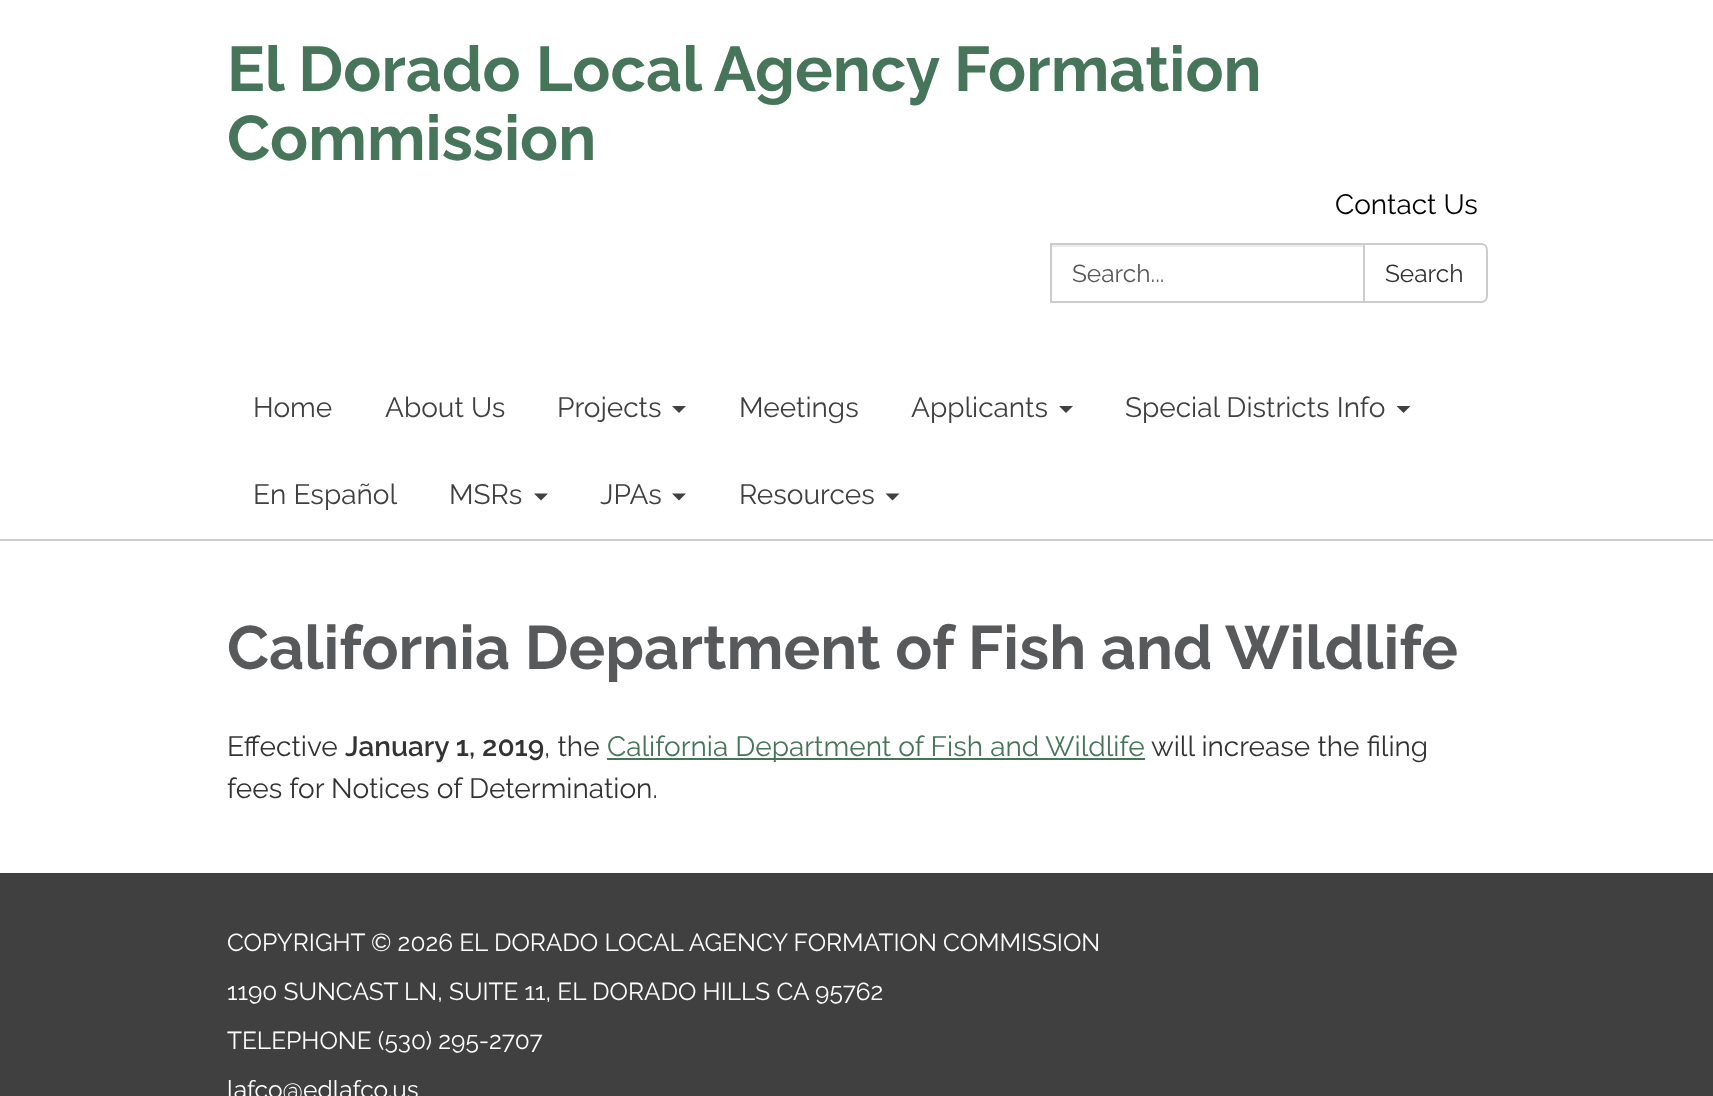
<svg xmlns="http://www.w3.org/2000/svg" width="1713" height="1096">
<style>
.a{font:bold 63px Raleway;fill:#46755a}
.b{font:28px Raleway;fill:#000}
.c{font:24.5px Raleway;fill:#58595b}
.d{font:24.5px Raleway;fill:#333}
.e{font:28px Raleway;fill:#404041}
.f{font:bold 61.25px Raleway;fill:#58595b}
.g{font:28px Raleway;fill:#333}
.h{font:600 28px Raleway;fill:#333}
.i{font:28px Raleway;fill:#46755a}
.j{font:24.5px Raleway;fill:#fff}
</style>
<rect width="100%" height="100%" fill="#404041"/>
<path fill="#fff" d="M0 0h1713v539H0z"/>
<path fill="#ececec" d="M1052 245h311v2H1052z"/>
<path fill="none" stroke="#ccc" stroke-width="2" d="M1051 244h313v58H1051z"/>
<path fill="#fff" stroke="#ccc" stroke-width="2" d="M1364 244h117c3.5 0 6 2.5 6 6v46c0 3.5-2.5 6-6 6h-117z"/>
<path fill="#404041" d="M672 406h14l-7 7z"/>
<path fill="#404041" d="M1059 406h14l-7 7z"/>
<path fill="#404041" d="M1396.5 406h14l-7 7z"/>
<path fill="#404041" d="M534 493.5h14l-7 7z"/>
<path fill="#404041" d="M672 493.5h14l-7 7z"/>
<path fill="#404041" d="M885.5 493.5h14l-7 7z"/>
<path fill="#fff" d="M0 541h1713v332H0z"/>
<path fill="#ccc" d="M0 539h1713v2H0z"/>
<path fill="#46755a" d="M607 758h538v2H607z"/>
<text class="a" x="227" y="91">El Dorado Local Agency Formation</text>
<text class="a" x="227" y="160">Commission</text>
<text class="b" x="1335" y="214">Contact Us</text>
<text class="c" x="1072" y="282">Search...</text>
<text class="d" x="1385" y="282">Search</text>
<text class="e" x="253" y="417">Home</text>
<text class="e" x="385" y="417">About Us</text>
<text class="e" x="557" y="417">Projects</text>
<text class="e" x="739" y="417">Meetings</text>
<text class="e" x="911" y="417">Applicants</text>
<text class="e" x="1125" y="417">Special Districts Info</text>
<text class="e" x="253" y="504">En Español</text>
<text class="e" x="449" y="504">MSRs</text>
<text class="e" x="600" y="504">JPAs</text>
<text class="e" x="739" y="504">Resources</text>
<text class="f" x="227" y="669">California Department of Fish and Wildlife</text>
<text class="g" x="227" y="756">Effective</text>
<text class="h" x="345" y="756">January 1, 2019</text>
<text class="g" x="544" y="756">, the</text>
<text class="i" x="607" y="756">California Department of Fish and Wildlife</text>
<text class="g" x="1151" y="756">will increase the filing</text>
<text class="g" x="227" y="798">fees for Notices of Determination.</text>
<text class="j" x="227" y="951">COPYRIGHT © 2026 EL DORADO LOCAL AGENCY FORMATION COMMISSION</text>
<text class="j" x="227" y="1000">1190 SUNCAST LN, SUITE 11, EL DORADO HILLS CA 95762</text>
<text class="j" x="227" y="1049">TELEPHONE (530) 295-2707</text>
<text class="j" x="227" y="1098">lafco@edlafco.us</text>
</svg>
